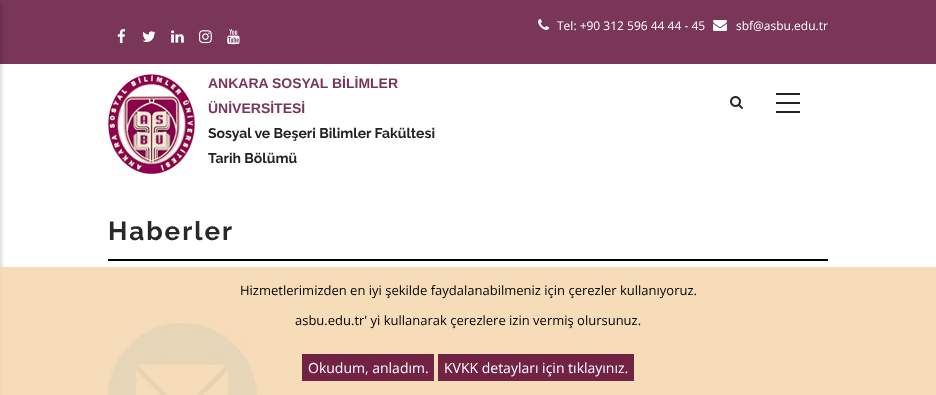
<svg xmlns="http://www.w3.org/2000/svg" width="936" height="395">
<style>
.a{font:12px Open Sans;fill:#fff}
.b{font:bold 14px Liberation Sans;fill:#793658}
.c{font:bold 14px Raleway;fill:#222}
.d{font:bold 26px Raleway;letter-spacing:2px;fill:#282828}
.e{font:13px Open Sans;fill:#000}
.f{font:14px Open Sans;fill:#fff}
</style>
<rect width="100%" height="100%" fill="#fff"/>
<path fill="#793658" d="M0 0h936v64H0z"/>
<image href="1.png" x="538" y="19" width="11" height="11"/>
<image href="2.png" x="713" y="20" width="14" height="11"/>
<image href="3.png" x="117" y="29" width="9" height="15"/>
<image href="4.png" x="142" y="31" width="14" height="11"/>
<image href="5.png" x="171" y="30" width="13" height="13"/>
<image href="6.png" x="199" y="30" width="13" height="14"/>
<image href="7.png" x="227" y="29" width="13" height="16"/>
<path fill="#00000033" filter="blur(2px)" d="M-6 3h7v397H-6z"/>
<image href="8.png" x="730" y="96" width="13" height="13"/>
<path fill="#222" d="M776 93h24v2H776z"/>
<path fill="#222" d="M776 102h24v2H776z"/>
<path fill="#222" d="M776 111h24v2H776z"/>
<image href="9.png" x="108" y="74" width="87" height="100"/>
<path fill="#000" d="M108 259h720v2H108z"/>
<image href="10.png" x="108" y="323" width="150" height="72"/>
<path fill="#f6d8b2e6" d="M0 267h936v128H0z"/>
<path fill="#722343" d="M302 354h132v27H302z"/>
<path fill="#722343" d="M438 354h196v27H438z"/>
<text class="a" x="557" y="30">Tel: +90 312 596 44 44 - 45</text>
<text class="a" x="736" y="30">sbf@asbu.edu.tr</text>
<text class="b" x="208" y="88">ANKARA SOSYAL BİLİMLER</text>
<text class="b" x="208" y="113">ÜNİVERSİTESİ</text>
<text class="c" x="208" y="138">Sosyal ve Beşeri Bilimler Fakültesi</text>
<text class="c" x="208" y="163">Tarih Bölümü</text>
<text class="d" x="108" y="240">Haberler</text>
<text class="e" x="240" y="295">Hizmetlerimizden en iyi şekilde faydalanabilmeniz için çerezler kullanıyoruz.</text>
<text class="e" x="295" y="325">asbu.edu.tr' yi kullanarak çerezlere izin vermiş olursunuz.</text>
<text class="f" x="308" y="373">Okudum, anladım.</text>
<text class="f" x="444" y="373">KVKK detayları için tıklayınız.</text>
</svg>
